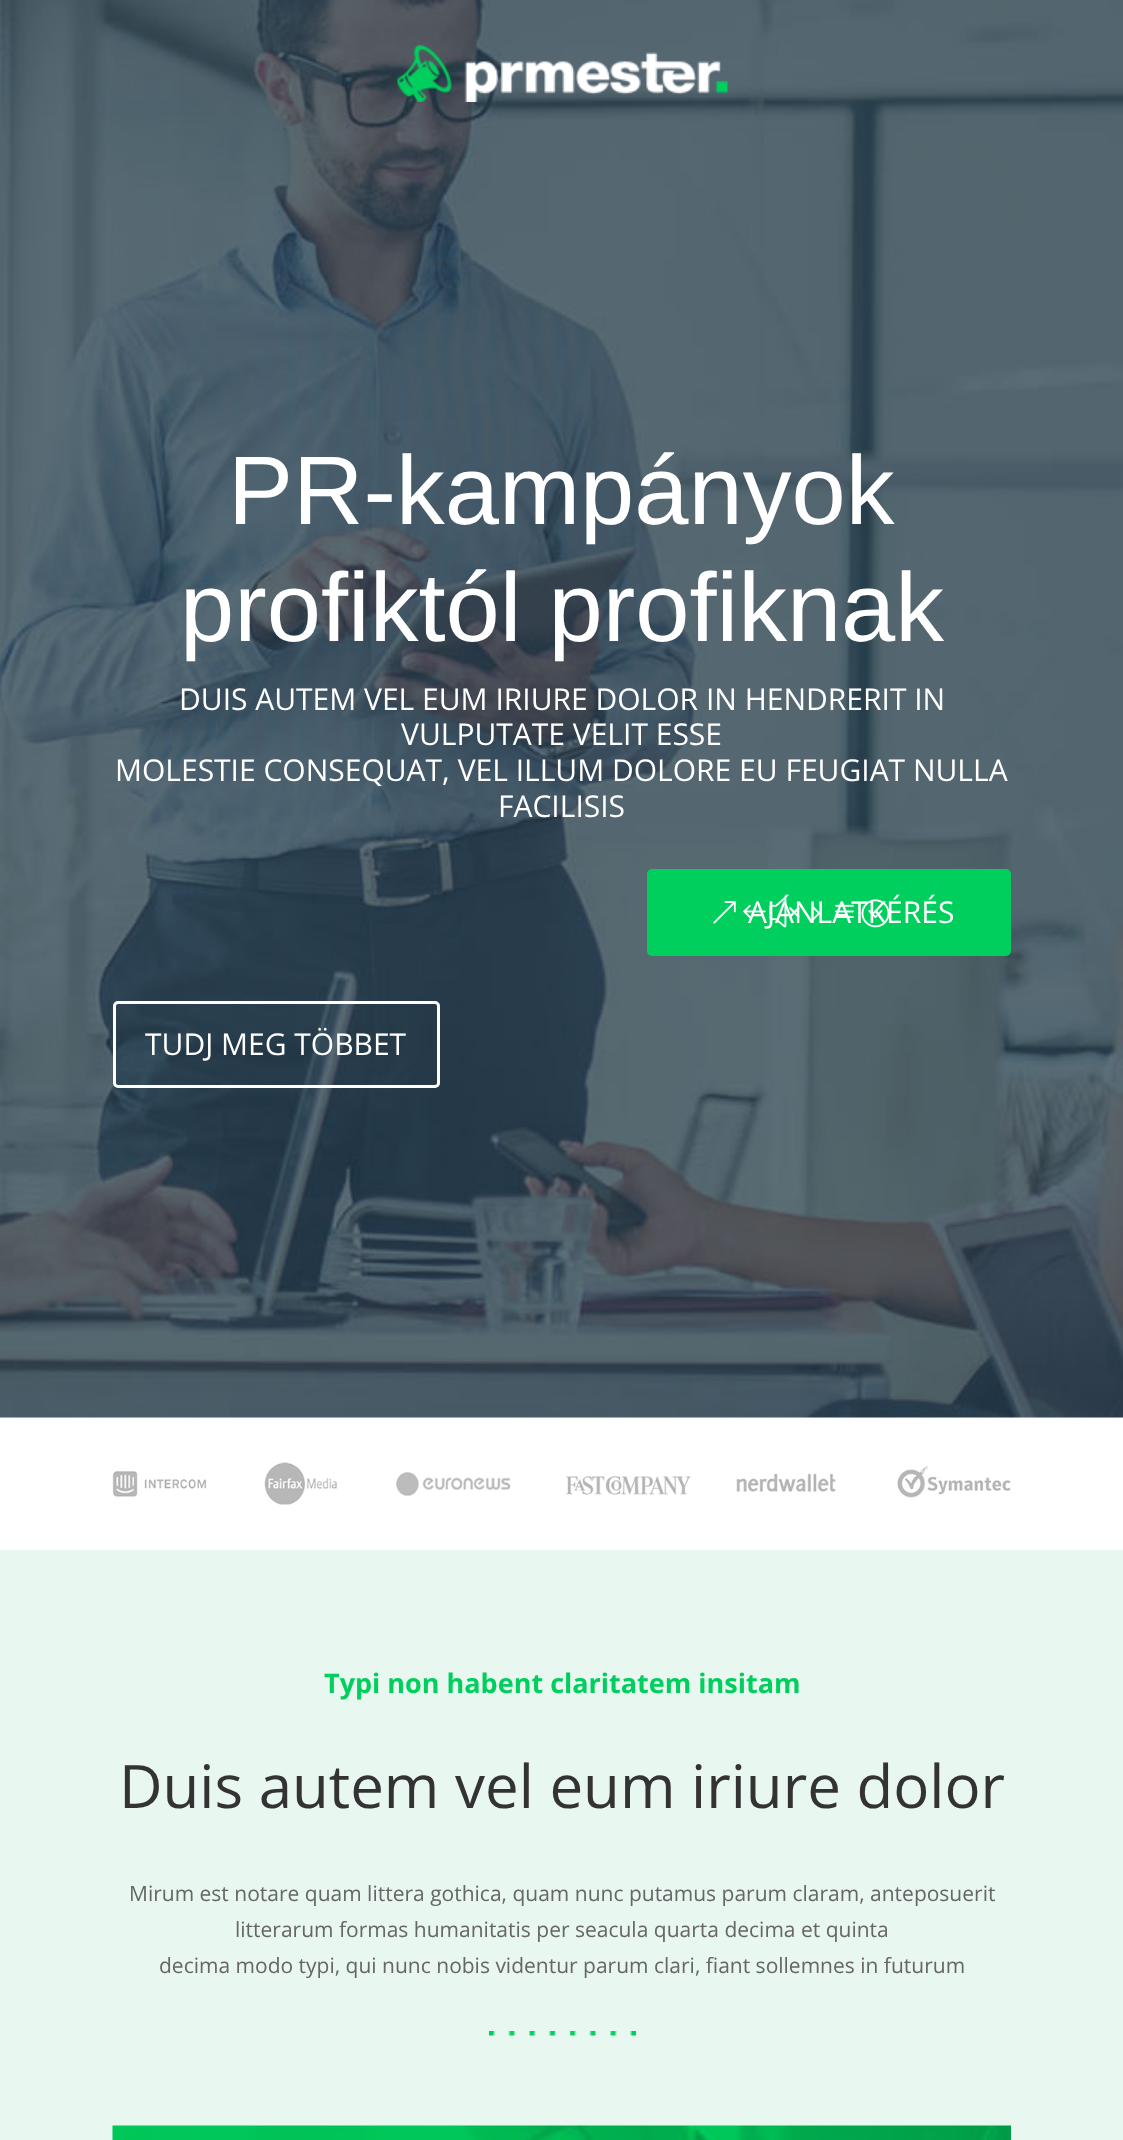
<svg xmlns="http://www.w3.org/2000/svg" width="1123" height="2140">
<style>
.a{font:97.5px Liberation Sans;fill:#fff}
.b{font:30px Open Sans;fill:#fff}
.c{font:bold 27px Open Sans;fill:#00cf5d}
.d{font:60px Open Sans;fill:#333}
.e{font:21px Open Sans;fill:#666}
</style>
<rect width="100%" height="100%" fill="#fff"/>
<image href="1.png" x="0" y="0" width="1123" height="1418"/>
<image href="2.png" x="397" y="45" width="331" height="57"/>
<rect fill="#00cf5d" stroke="#00cf5d" stroke-width="3" x="648.5" y="870.5" width="361" height="84" rx="3.5"/>
<rect fill="none" stroke="#fff" stroke-width="3" x="114.5" y="1002.5" width="324" height="84" rx="3.5"/>
<image href="4.png" x="112" y="1462" width="899" height="43"/>
<path fill="#e9f7f1" d="M0 1550h1123v590H0z"/>
<image href="5.png" x="489" y="2031" width="147" height="5"/>
<image href="6.png" x="112" y="2125" width="899" height="15"/>
<text class="a" x="228" y="524">PR-kampányok</text>
<text class="a" x="180" y="641">profiktól profiknak</text>
<text class="b" x="179" y="710">DUIS AUTEM VEL EUM IRIURE DOLOR IN HENDRERIT IN</text>
<text class="b" x="401" y="745">VULPUTATE VELIT ESSE</text>
<text class="b" x="115" y="781">MOLESTIE CONSEQUAT, VEL ILLUM DOLORE EU FEUGIAT NULLA</text>
<text class="b" x="498" y="817">FACILISIS</text>
<text class="b" x="748" y="923">AJÁNLATKÉRÉS</text>
<image href="3.png" x="713" y="897" width="176" height="31"/>
<text class="b" x="145" y="1055">TUDJ MEG TÖBBET</text>
<text class="c" x="324" y="1693">Typi non habent claritatem insitam</text>
<text class="d" x="119" y="1808">Duis autem vel eum iriure dolor</text>
<text class="e" x="129" y="1901">Mirum est notare quam littera gothica, quam nunc putamus parum claram, anteposuerit</text>
<text class="e" x="235" y="1937">litterarum formas humanitatis per seacula quarta decima et quinta</text>
<text class="e" x="159" y="1973">decima modo typi, qui nunc nobis videntur parum clari, fiant sollemnes in futurum</text>
</svg>
